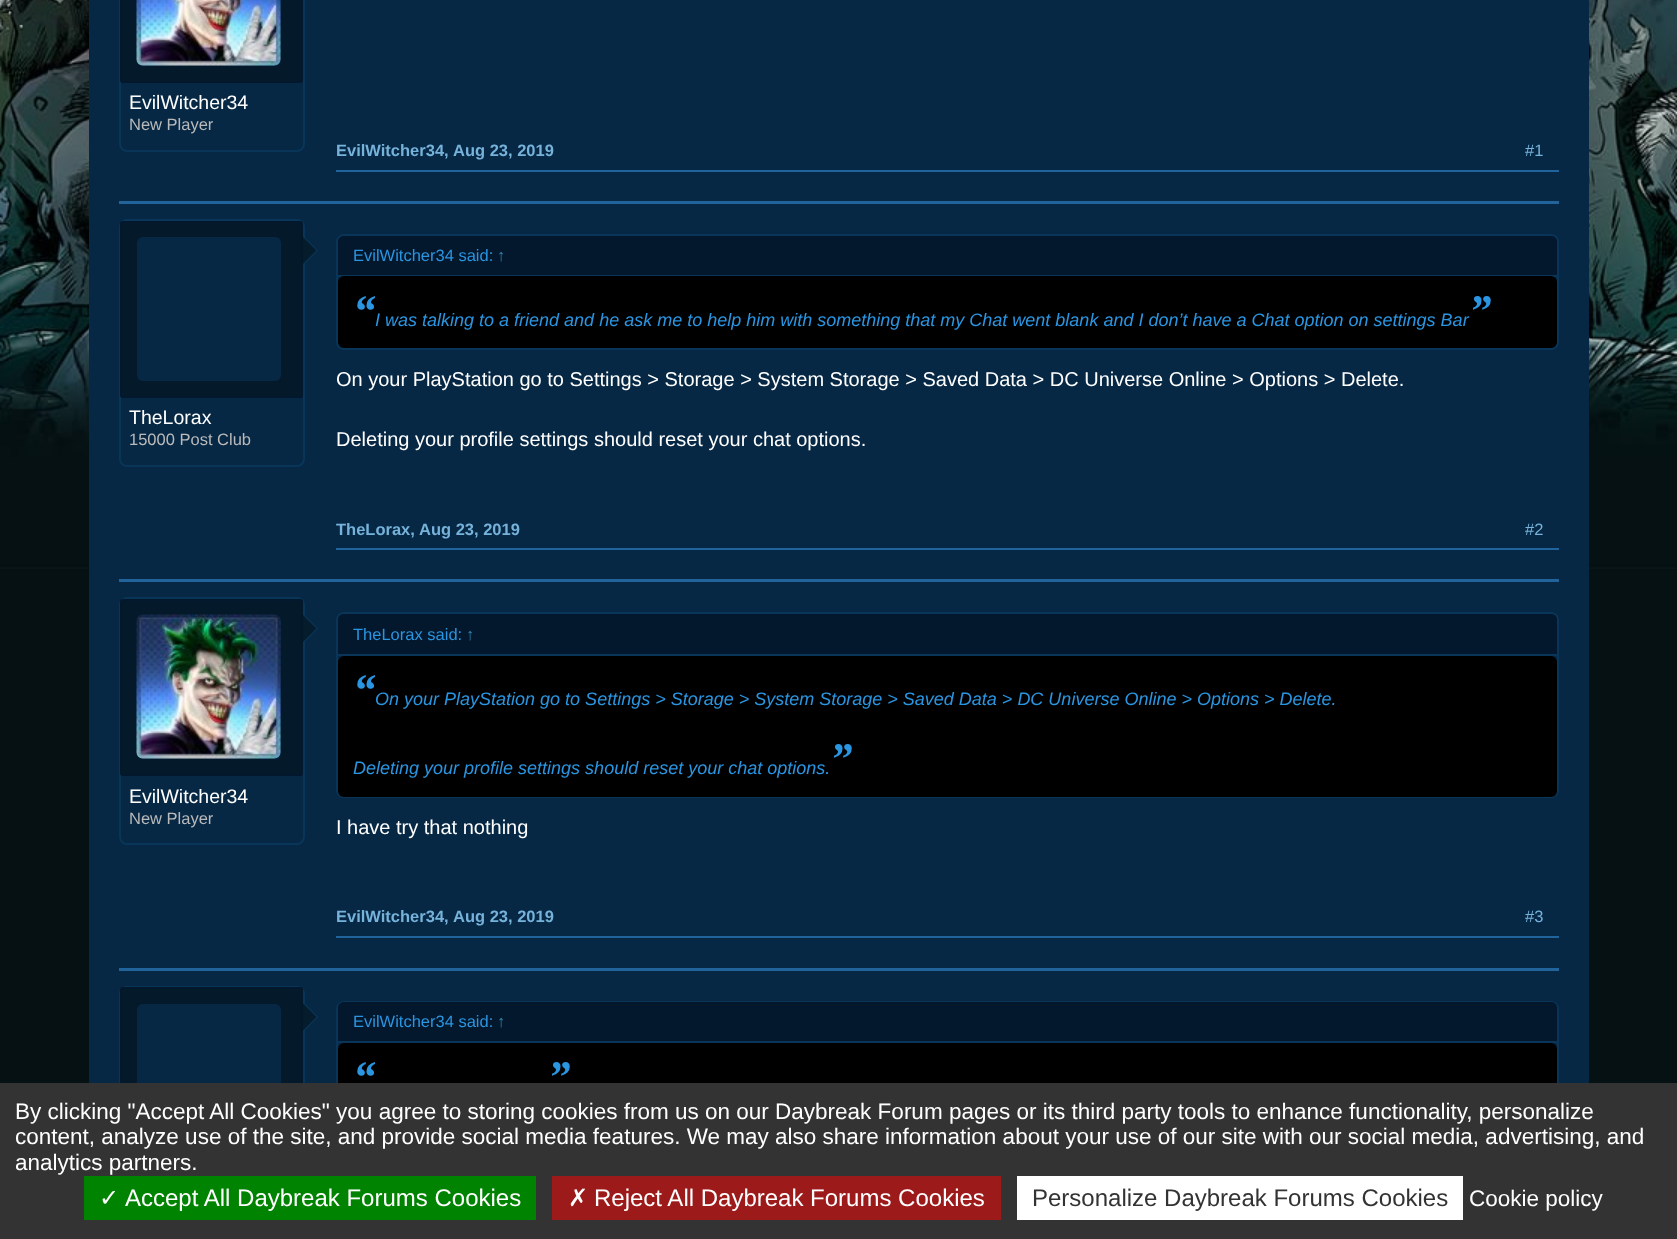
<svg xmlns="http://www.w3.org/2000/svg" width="1677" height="1239">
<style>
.a{font:19.5px Liberation Sans;fill:#fff}
.b{font:16.5px Liberation Sans;fill:#bababa}
.c{font:bold 16.5px Liberation Sans;fill:#76b2da}
.d{font:16.5px Liberation Sans;fill:#76b2da}
.e{font:16.5px Liberation Sans;fill:#2a95e1}
.f{font:16.5px Liberation Sans;fill:#3186b0}
.g{font:italic bold 45px Liberation Serif;fill:#2a95e1}
.h{font:italic 18px Liberation Sans;fill:#2a95e1}
.i{font:20px Liberation Sans;fill:#fff}
.j{font:22.5px Liberation Sans;fill:#fff}
.k{font:24px DejaVu Sans;fill:#fff}
.l{font:24px Liberation Sans;fill:#fff}
.m{font:24px Liberation Sans;fill:#333}
</style>
<rect width="100%" height="100%" fill="#051113"/>
<image href="1.png" x="0" y="0" width="1677" height="569"/>
<path fill="#062845" d="M89 0h1500v1083H89z"/>
<rect fill="none" stroke="#093658" stroke-width="2" x="120" y="-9" width="184" height="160" rx="7"/>
<rect fill="#051826d9" stroke="#03172d" stroke-width="2" x="121" y="-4" width="181" height="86" rx="2"/>
<rect fill="#062845" x="137" y="-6" width="144" height="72" rx="6"/>
<image href="2.png" x="136" y="0" width="145" height="66"/>
<path fill="#21649b" d="M336 170h1223v2H336z"/>
<path fill="#21649b" d="M119 201h1440v3H119z"/>
<rect fill="none" stroke="#093658" stroke-width="2" x="120" y="220" width="184" height="246" rx="7"/>
<rect fill="#051826d9" stroke="#03172d" stroke-width="2" x="121" y="222" width="181" height="175" rx="2"/>
<rect fill="#062845" x="137" y="237" width="144" height="144" rx="6"/>
<path fill="#093658" d="M303 265.5v-30l15 15z"/>
<path fill="#051826d9" d="M301.5 265.5v-30l15 15z"/>
<path fill="#21649b" d="M336 548h1223v2H336z"/>
<rect fill="none" stroke="#093658" stroke-width="2" x="337" y="235" width="1221" height="114" rx="7"/>
<path fill="#03172d" d="M344 236h1207c3.5 0 6 2.5 6 6v34h-1219v-34c0-3.5 2.5-6 6-6z"/>
<path fill="#093658" d="M338 275h1219v2H338z"/>
<rect fill="#000" x="338" y="276" width="1219" height="72" rx="6"/>
<path fill="#21649b" d="M119 579h1440v3H119z"/>
<rect fill="none" stroke="#093658" stroke-width="2" x="120" y="598" width="184" height="246" rx="7"/>
<rect fill="#051826d9" stroke="#03172d" stroke-width="2" x="121" y="600" width="181" height="175" rx="2"/>
<rect fill="#062845" x="137" y="615" width="144" height="144" rx="6"/>
<image href="3.png" x="136" y="614" width="145" height="145"/>
<path fill="#093658" d="M303 643.5v-30l15 15z"/>
<path fill="#051826d9" d="M301.5 643.5v-30l15 15z"/>
<path fill="#21649b" d="M336 936h1223v2H336z"/>
<rect fill="none" stroke="#093658" stroke-width="2" x="337" y="613" width="1221" height="184" rx="7"/>
<path fill="#03172d" d="M344 614h1207c3.5 0 6 2.5 6 6v36h-1219v-36c0-3.5 2.5-6 6-6z"/>
<path fill="#093658" d="M338 654h1219v2H338z"/>
<rect fill="#000" x="338" y="656" width="1219" height="141" rx="6"/>
<path fill="#21649b" d="M119 968h1440v3H119z"/>
<rect fill="none" stroke="#093658" stroke-width="2" x="120" y="987" width="184" height="245" rx="7"/>
<rect fill="#051826d9" stroke="#03172d" stroke-width="2" x="121" y="988" width="181" height="175" rx="2"/>
<rect fill="#062845" x="137" y="1004" width="144" height="144" rx="6"/>
<path fill="#093658" d="M303 1032v-30l15 15z"/>
<path fill="#051826d9" d="M301.5 1032v-30l15 15z"/>
<rect fill="none" stroke="#093658" stroke-width="2" x="337" y="1002" width="1221" height="113" rx="7"/>
<path fill="#03172d" d="M344 1002h1207c3.5 0 6 2.5 6 6v35h-1219v-35c0-3.5 2.5-6 6-6z"/>
<path fill="#093658" d="M338 1041h1219v2H338z"/>
<rect fill="#000" x="338" y="1043" width="1219" height="72" rx="6"/>
<path fill="#333" d="M0 1083h1677v156H0z"/>
<path fill="#008300" d="M84 1176h452v44H84z"/>
<path fill="#9c1a1a" d="M552 1176h449v44H552z"/>
<path fill="#fff" d="M1017 1176h446v44H1017z"/>
<text class="a" x="129" y="109">EvilWitcher34</text>
<text class="b" x="129" y="130">New Player</text>
<text class="c" x="336" y="156">EvilWitcher34,</text>
<text class="c" x="453" y="156">Aug 23, 2019</text>
<text class="d" x="1525" y="156">#1</text>
<text class="a" x="129" y="424">TheLorax</text>
<text class="b" x="129" y="445">15000 Post Club</text>
<text class="e" x="353" y="261">EvilWitcher34 said:</text>
<text class="f" x="497" y="261">↑</text>
<text class="g" x="353" y="326">“</text>
<text class="g" x="1469" y="326">”</text>
<text class="h" x="375" y="326">I was talking to a friend and he ask me to help him with something that my Chat went blank and I don’t have a Chat option on settings Bar</text>
<text class="i" x="336" y="386">On your PlayStation go to Settings &gt; Storage &gt; System Storage &gt; Saved Data &gt; DC Universe Online &gt; Options &gt; Delete.</text>
<text class="i" x="336" y="446">Deleting your profile settings should reset your chat options.</text>
<text class="c" x="336" y="535">TheLorax,</text>
<text class="c" x="419" y="535">Aug 23, 2019</text>
<text class="d" x="1525" y="535">#2</text>
<text class="a" x="129" y="803">EvilWitcher34</text>
<text class="b" x="129" y="824">New Player</text>
<text class="e" x="353" y="640">TheLorax said:</text>
<text class="f" x="466" y="640">↑</text>
<text class="g" x="353" y="705">“</text>
<text class="h" x="375" y="705">On your PlayStation go to Settings &gt; Storage &gt; System Storage &gt; Saved Data &gt; DC Universe Online &gt; Options &gt; Delete.</text>
<text class="g" x="830" y="774">”</text>
<text class="h" x="353" y="774">Deleting your profile settings should reset your chat options.</text>
<text class="i" x="336" y="834">I have try that nothing</text>
<text class="c" x="336" y="922">EvilWitcher34,</text>
<text class="c" x="453" y="922">Aug 23, 2019</text>
<text class="d" x="1525" y="922">#3</text>
<text class="e" x="353" y="1027">EvilWitcher34 said:</text>
<text class="f" x="497" y="1027">↑</text>
<text class="g" x="353" y="1092">“</text>
<text class="g" x="548" y="1092">”</text>
<text class="j" x="15" y="1119">By clicking "Accept All Cookies" you agree to storing cookies from us on our Daybreak Forum pages or its third party tools to enhance functionality, personalize</text>
<text class="j" x="15" y="1144">content, analyze use of the site, and provide social media features. We may also share information about your use of our site with our social media, advertising, and</text>
<text class="j" x="15" y="1170">analytics partners.</text>
<text class="k" x="99" y="1206">✓</text>
<text class="l" x="125" y="1206">Accept All Daybreak Forums Cookies</text>
<text class="k" x="568" y="1206">✗</text>
<text class="l" x="594" y="1206">Reject All Daybreak Forums Cookies</text>
<text class="m" x="1032" y="1206">Personalize Daybreak Forums Cookies</text>
<text class="j" x="1469" y="1206">Cookie policy</text>
</svg>
